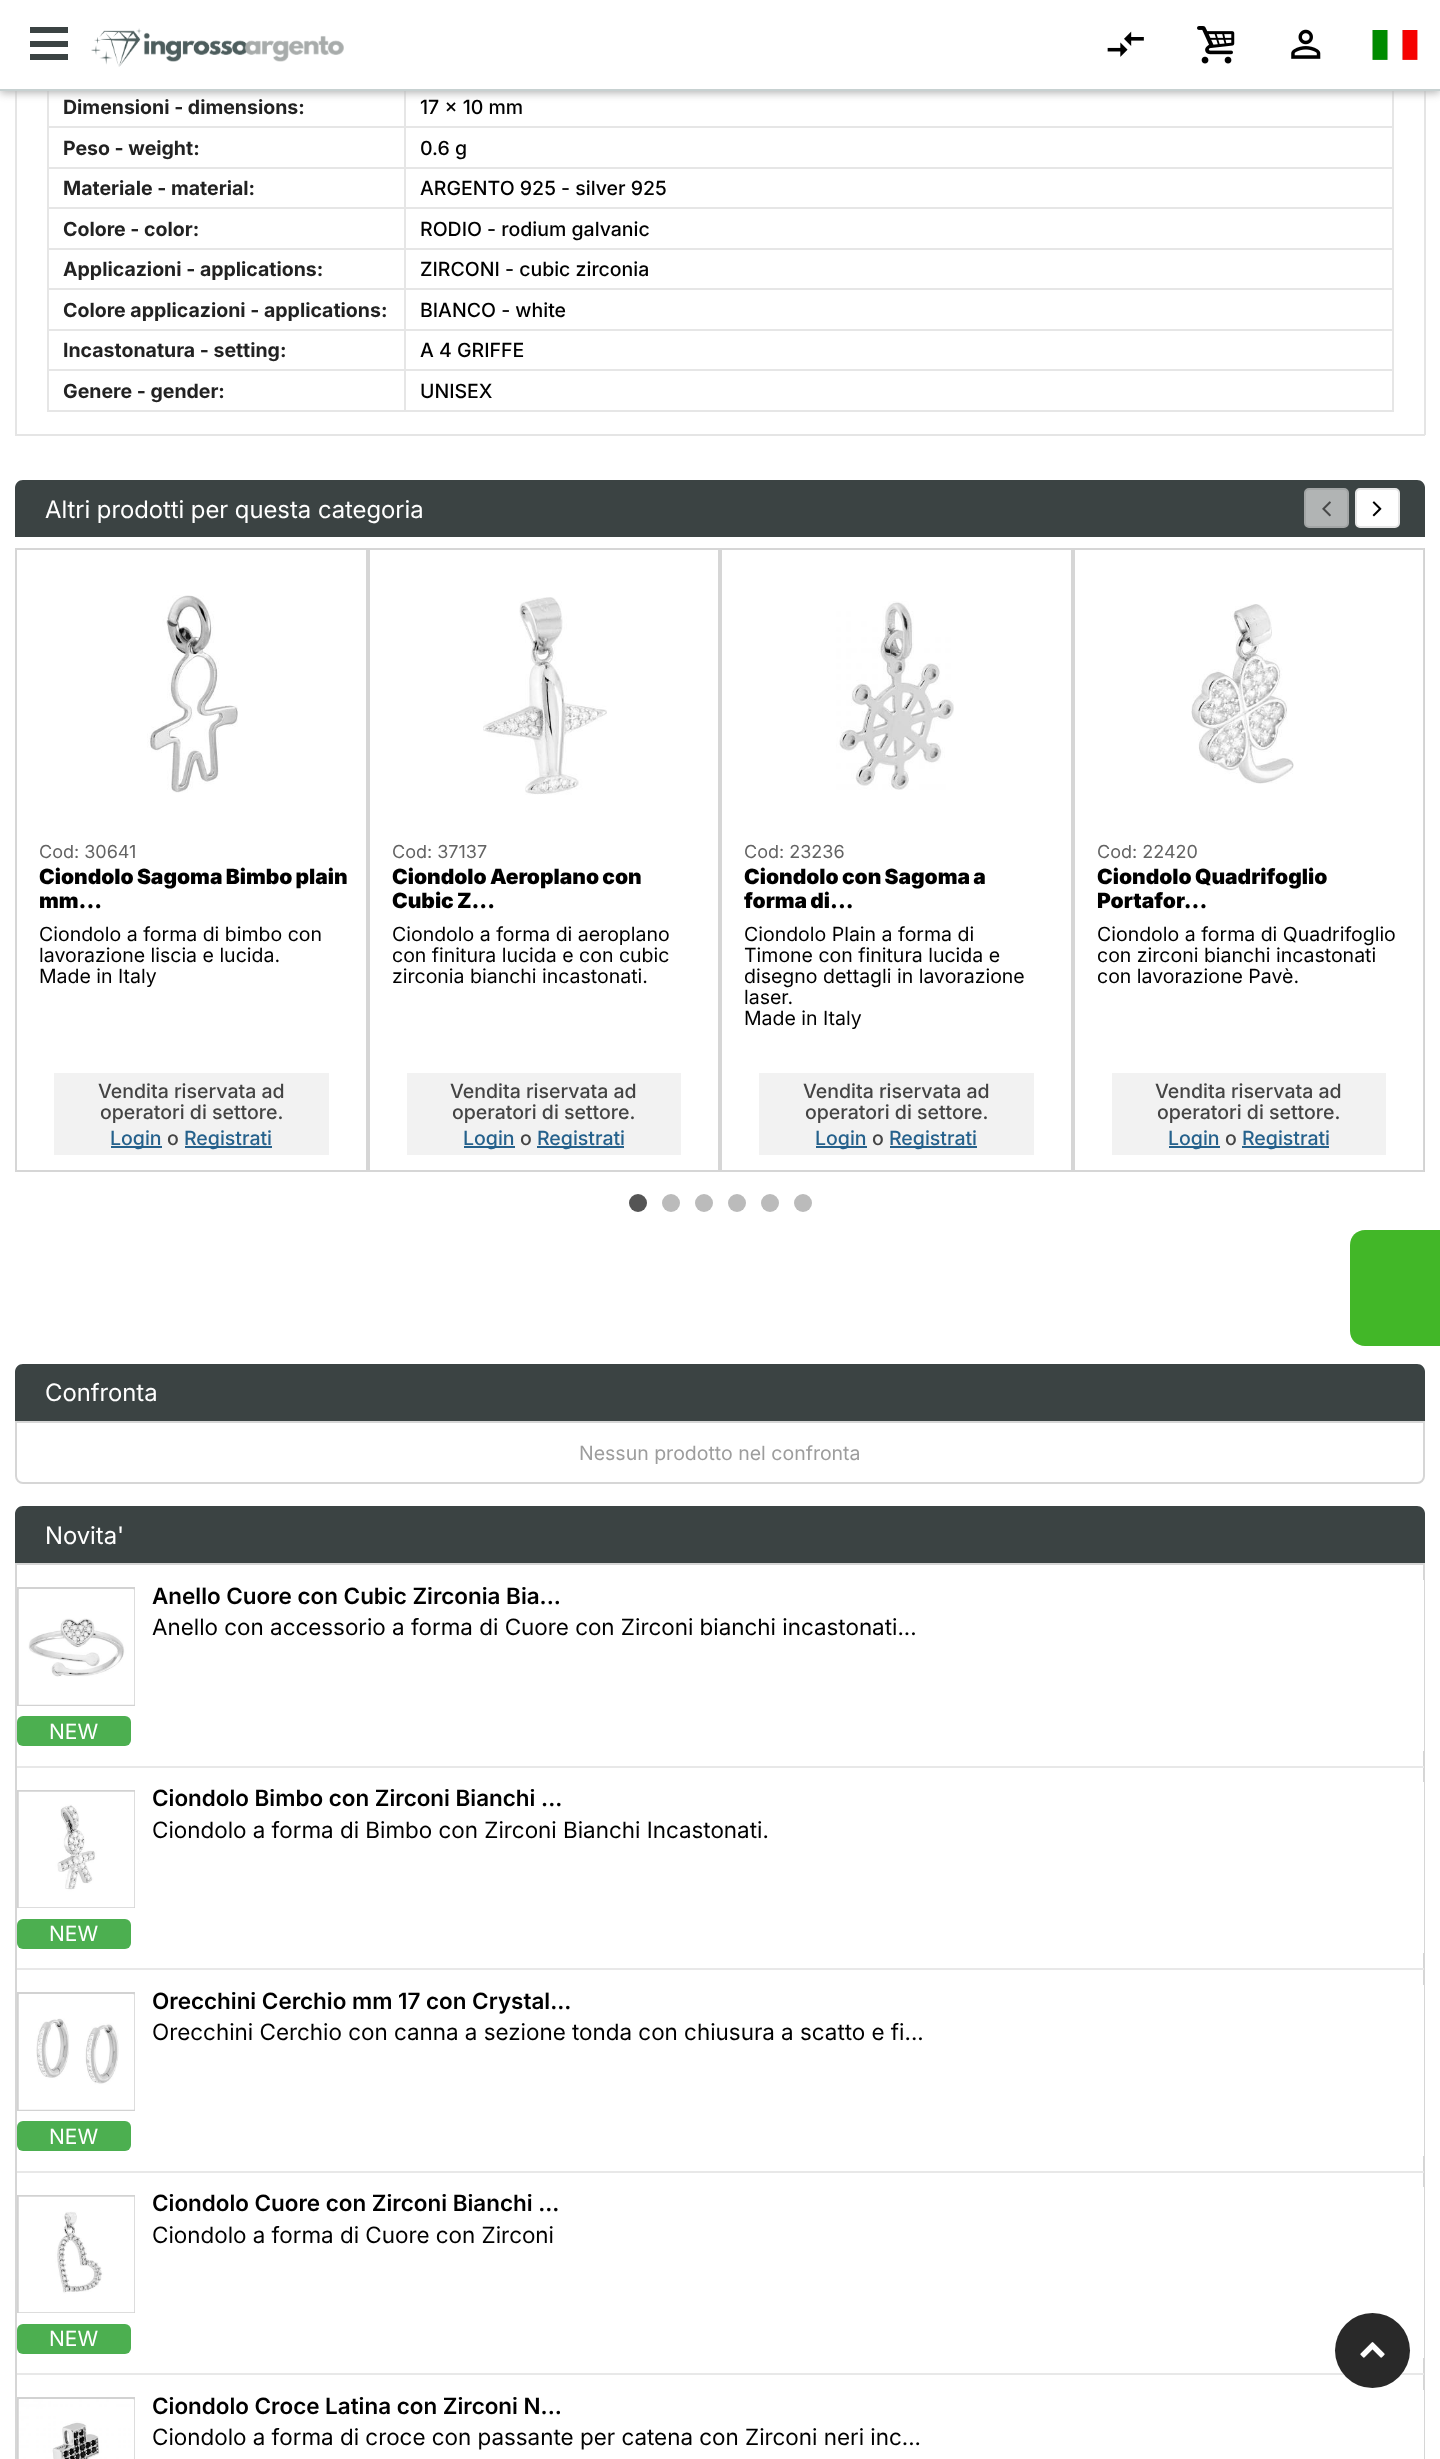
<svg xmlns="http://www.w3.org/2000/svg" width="1440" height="2459">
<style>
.a{font:bold 19.5px Inter;fill:#222}
.b{font:500 19.5px Inter;fill:#000}
.c{font:24px 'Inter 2';fill:#fff}
.d{font:18px Inter;fill:#636363}
.e{font:900 21px Inter;fill:#000}
.f{font:19.5px Inter;fill:#000}
.g{font:500 19.5px Inter;fill:#444}
.h{font:500 19.5px Inter;fill:#25618c}
.i{font:19.5px Inter;fill:#9d9d9d}
.j{font:600 22.5px Inter;fill:#000}
.k{font:22.5px 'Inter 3';fill:#000}
.l{font:21px Inter;fill:#fff}
</style>
<rect width="100%" height="100%" fill="#fff"/>
<path fill="#e5e5e5" d="M1424 91h2v344H1424z"/>
<path fill="#e5e5e5" d="M15 434h1410v2H15z"/>
<path fill="#e5e5e5" d="M15 91h2v344H15z"/>
<path fill="#e6e6e6" d="M404 126h990v2H404z"/>
<path fill="#e6e6e6" d="M404 167h990v2H404z"/>
<path fill="#e6e6e6" d="M404 207h990v2H404z"/>
<path fill="#e6e6e6" d="M404 248h990v2H404z"/>
<path fill="#e6e6e6" d="M404 288h990v2H404z"/>
<path fill="#e6e6e6" d="M404 329h990v2H404z"/>
<path fill="#e6e6e6" d="M404 369h990v2H404z"/>
<path fill="#e6e6e6" d="M47 410h1347v2H47z"/>
<path fill="#e6e6e6" d="M404 369h2v42H404z"/>
<path fill="#e6e6e6" d="M47 369h358v2H47z"/>
<path fill="#e6e6e6" d="M404 329h2v42H404z"/>
<path fill="#e6e6e6" d="M47 329h358v2H47z"/>
<path fill="#e6e6e6" d="M404 288h2v42H404z"/>
<path fill="#e6e6e6" d="M47 288h358v2H47z"/>
<path fill="#e6e6e6" d="M404 248h2v42H404z"/>
<path fill="#e6e6e6" d="M47 248h358v2H47z"/>
<path fill="#e6e6e6" d="M404 207h2v42H404z"/>
<path fill="#e6e6e6" d="M47 207h358v2H47z"/>
<path fill="#e6e6e6" d="M404 167h2v42H404z"/>
<path fill="#e6e6e6" d="M47 167h358v2H47z"/>
<path fill="#e6e6e6" d="M404 126h2v42H404z"/>
<path fill="#e6e6e6" d="M47 126h358v2H47z"/>
<path fill="#e6e6e6" d="M404 86h2v42H404z"/>
<path fill="#e6e6e6" d="M47 369h2v42H47z"/>
<path fill="#e6e6e6" d="M47 329h2v42H47z"/>
<path fill="#e6e6e6" d="M47 288h2v42H47z"/>
<path fill="#e6e6e6" d="M47 248h2v42H47z"/>
<path fill="#e6e6e6" d="M47 207h2v42H47z"/>
<path fill="#e6e6e6" d="M47 167h2v42H47z"/>
<path fill="#e6e6e6" d="M47 86h2v82H47z"/>
<path fill="#e6e6e6" d="M1392 369h2v42H1392z"/>
<path fill="#e6e6e6" d="M1392 329h2v42H1392z"/>
<path fill="#e6e6e6" d="M1392 288h2v42H1392z"/>
<path fill="#e6e6e6" d="M1392 248h2v42H1392z"/>
<path fill="#e6e6e6" d="M1392 207h2v42H1392z"/>
<path fill="#e6e6e6" d="M1392 167h2v42H1392z"/>
<path fill="#e6e6e6" d="M1392 86h2v82H1392z"/>
<path fill="#b4b4b4" filter="blur(4px)" d="M0 3h1440v90H0z"/>
<path fill="#fff" d="M0 0h1440v89H0z"/>
<path fill="#c7d1d1" d="M0 89h1440v2H0z"/>
<image href="1.png" x="91" y="28" width="253" height="39"/>
<image href="2.png" x="1107" y="31" width="37" height="26"/>
<image href="3.png" x="1197" y="26" width="38" height="38"/>
<image href="4.png" x="1291" y="29" width="30" height="30"/>
<image href="5.png" x="1372" y="30" width="46" height="30"/>
<path fill="#3b4343" d="M30 27h38v6H30z"/>
<path fill="#3b4343" d="M30 41h38v6H30z"/>
<path fill="#3b4343" d="M30 54h38v6H30z"/>
<path fill="#3b4343" d="M23 480h1394c4.5 0 8 3.5 8 8v49h-1410v-49c0-4.5 3.5-8 8-8z"/>
<rect fill="#b1b4b4" stroke="#a2a5a5" stroke-width="2" x="1305" y="489" width="43" height="38" rx="4"/>
<image href="6.png" x="1322" y="501" width="9" height="16"/>
<rect fill="#fff" stroke="#e6e6e6" stroke-width="2" x="1356" y="489" width="43" height="38" rx="4"/>
<image href="7.png" x="1372" y="501" width="10" height="16"/>
<path fill="none" stroke="#d6d6d6" stroke-width="2" d="M16 549h351v622H16z"/>
<image href="8.png" x="147" y="595" width="91" height="198"/>
<path fill="#f2f2f2" d="M54 1073h275v82H54z"/>
<path fill="#25618c" d="M111 1146h51v2H111z"/>
<path fill="#25618c" d="M185 1146h87v2H185z"/>
<path fill="none" stroke="#d6d6d6" stroke-width="2" d="M369 549h350v622H369z"/>
<image href="9.png" x="483" y="597" width="124" height="198"/>
<path fill="#f2f2f2" d="M407 1073h274v82H407z"/>
<path fill="#25618c" d="M464 1146h51v2H464z"/>
<path fill="#25618c" d="M537 1146h87v2H537z"/>
<path fill="none" stroke="#d6d6d6" stroke-width="2" d="M721 549h351v622H721z"/>
<image href="10.png" x="836" y="601" width="118" height="189"/>
<path fill="#f2f2f2" d="M759 1073h275v82H759z"/>
<path fill="#25618c" d="M816 1146h51v2H816z"/>
<path fill="#25618c" d="M890 1146h87v2H890z"/>
<path fill="none" stroke="#d6d6d6" stroke-width="2" d="M1074 549h350v622H1074z"/>
<image href="11.png" x="1191" y="604" width="103" height="180"/>
<path fill="#f2f2f2" d="M1112 1073h274v82H1112z"/>
<path fill="#25618c" d="M1169 1146h51v2H1169z"/>
<path fill="#25618c" d="M1242 1146h87v2H1242z"/>
<path fill="#d2d2d2" d="M1424 548h1v624H1424z"/>
<circle fill="#555" cx="638" cy="1203" r="9"/>
<circle fill="#bbb" cx="671" cy="1203" r="9"/>
<circle fill="#bbb" cx="704" cy="1203" r="9"/>
<circle fill="#bbb" cx="737" cy="1203" r="9"/>
<circle fill="#bbb" cx="770" cy="1203" r="9"/>
<circle fill="#bbb" cx="803" cy="1203" r="9"/>
<path fill="#3b4343" d="M23 1364h1394c4.5 0 8 3.5 8 8v49h-1410v-49c0-4.5 3.5-8 8-8z"/>
<path fill="none" stroke="#d6d6d6" stroke-width="2" d="M16 1422h1408v54c0 4-3 7-7 7h-1394c-4 0-7-3-7-7z"/>
<path fill="#3b4343" d="M23 1506h1394c4.5 0 8 3.5 8 8v49h-1410v-49c0-4.5 3.5-8 8-8z"/>
<path fill="none" stroke="#d6d6d6" stroke-width="2" d="M16 1564h1408v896H16z"/>
<path fill="#fff" d="M1423 1580h1v171H1423z"/>
<path fill="none" stroke="#d2d2d2" stroke-width="2" d="M18 1588h116v117H18z"/>
<image href="12.png" x="18" y="1589" width="117" height="116"/>
<rect fill="#4caf50" x="17" y="1716" width="114" height="30" rx="6"/>
<path fill="#e8e8e8" d="M17 1766h1407v2H17z"/>
<path fill="#fff" d="M1423 1782h1v171H1423z"/>
<path fill="none" stroke="#d2d2d2" stroke-width="2" d="M18 1791h116v116H18z"/>
<image href="13.png" x="18" y="1791" width="117" height="117"/>
<rect fill="#4caf50" x="17" y="1919" width="114" height="30" rx="6"/>
<path fill="#e8e8e8" d="M17 1968h1407v2H17z"/>
<path fill="#fff" d="M1423 1985h1v171H1423z"/>
<path fill="none" stroke="#d2d2d2" stroke-width="2" d="M18 1993h116v117H18z"/>
<image href="14.png" x="18" y="1994" width="117" height="116"/>
<rect fill="#4caf50" x="17" y="2121" width="114" height="30" rx="6"/>
<path fill="#e8e8e8" d="M17 2171h1407v2H17z"/>
<path fill="#fff" d="M1423 2187h1v171H1423z"/>
<path fill="none" stroke="#d2d2d2" stroke-width="2" d="M18 2196h116v116H18z"/>
<image href="15.png" x="18" y="2196" width="117" height="117"/>
<rect fill="#4caf50" x="17" y="2324" width="114" height="30" rx="6"/>
<path fill="#e8e8e8" d="M17 2373h1407v2H17z"/>
<path fill="#fff" d="M1423 2390h1v69H1423z"/>
<path fill="none" stroke="#d2d2d2" stroke-width="2" d="M18 2398h116v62H18z"/>
<image href="16.png" x="18" y="2399" width="117" height="60"/>
<path fill="#42b728" d="M1365 1230h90v116h-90c-8.5 0-15-6.5-15-15v-86c0-8.5 6.5-15 15-15z"/>
<circle fill="#292929" cx="1372.5" cy="2350.5" r="37.5"/>
<image href="17.png" x="1360" y="2342" width="25" height="16"/>
<text class="a" x="63" y="114">Dimensioni - dimensions:</text>
<text class="b" x="420" y="114">17 x 10 mm</text>
<text class="a" x="63" y="155">Peso - weight:</text>
<text class="b" x="420" y="155">0.6 g</text>
<text class="a" x="63" y="195">Materiale - material:</text>
<text class="b" x="420" y="195">ARGENTO 925 - silver 925</text>
<text class="a" x="63" y="236">Colore - color:</text>
<text class="b" x="420" y="236">RODIO - rodium galvanic</text>
<text class="a" x="63" y="276">Applicazioni - applications:</text>
<text class="b" x="420" y="276">ZIRCONI - cubic zirconia</text>
<text class="a" x="63" y="317">Colore applicazioni - applications:</text>
<text class="b" x="420" y="317">BIANCO - white</text>
<text class="a" x="63" y="357">Incastonatura - setting:</text>
<text class="b" x="420" y="357">A 4 GRIFFE</text>
<text class="a" x="63" y="398">Genere - gender:</text>
<text class="b" x="420" y="398">UNISEX</text>
<text class="c" x="45" y="518">Altri prodotti per questa categoria</text>
<text class="d" x="39" y="858">Cod: 30641</text>
<text class="e" x="39" y="884" word-spacing="-1">Ciondolo Sagoma Bimbo plain</text>
<text class="e" x="39" y="908">mm...</text>
<text class="f" x="39" y="941">Ciondolo a forma di bimbo con</text>
<text class="f" x="39" y="962">lavorazione liscia e lucida.</text>
<text class="f" x="39" y="983">Made in Italy</text>
<text class="g" x="98" y="1098">Vendita riservata ad</text>
<text class="g" x="100" y="1119">operatori di settore.</text>
<text class="h" x="110" y="1145">Login</text>
<text class="g" x="167" y="1145">o</text>
<text class="h" x="184" y="1145">Registrati</text>
<text class="d" x="392" y="858">Cod: 37137</text>
<text class="e" x="392" y="884" word-spacing="-1">Ciondolo Aeroplano con</text>
<text class="e" x="392" y="908" word-spacing="-1">Cubic Z...</text>
<text class="f" x="392" y="941">Ciondolo a forma di aeroplano</text>
<text class="f" x="392" y="962">con finitura lucida e con cubic</text>
<text class="f" x="392" y="983">zirconia bianchi incastonati.</text>
<text class="g" x="450" y="1098">Vendita riservata ad</text>
<text class="g" x="452" y="1119">operatori di settore.</text>
<text class="h" x="463" y="1145">Login</text>
<text class="g" x="520" y="1145">o</text>
<text class="h" x="537" y="1145">Registrati</text>
<text class="d" x="744" y="858">Cod: 23236</text>
<text class="e" x="744" y="884" word-spacing="-1">Ciondolo con Sagoma a</text>
<text class="e" x="744" y="908" word-spacing="-1">forma di...</text>
<text class="f" x="744" y="941">Ciondolo Plain a forma di</text>
<text class="f" x="744" y="962">Timone con finitura lucida e</text>
<text class="f" x="744" y="983">disegno dettagli in lavorazione</text>
<text class="f" x="744" y="1004">laser.</text>
<text class="f" x="744" y="1025">Made in Italy</text>
<text class="g" x="803" y="1098">Vendita riservata ad</text>
<text class="g" x="805" y="1119">operatori di settore.</text>
<text class="h" x="815" y="1145">Login</text>
<text class="g" x="872" y="1145">o</text>
<text class="h" x="889" y="1145">Registrati</text>
<text class="d" x="1097" y="858">Cod: 22420</text>
<text class="e" x="1097" y="884" word-spacing="-1">Ciondolo Quadrifoglio</text>
<text class="e" x="1097" y="908">Portafor...</text>
<text class="f" x="1097" y="941">Ciondolo a forma di Quadrifoglio</text>
<text class="f" x="1097" y="962">con zirconi bianchi incastonati</text>
<text class="f" x="1097" y="983">con lavorazione Pavè.</text>
<text class="g" x="1155" y="1098">Vendita riservata ad</text>
<text class="g" x="1157" y="1119">operatori di settore.</text>
<text class="h" x="1168" y="1145">Login</text>
<text class="g" x="1225" y="1145">o</text>
<text class="h" x="1242" y="1145">Registrati</text>
<text class="c" x="45" y="1401">Confronta</text>
<text class="i" x="579" y="1460">Nessun prodotto nel confronta</text>
<text class="c" x="45" y="1544">Novita'</text>
<text class="j" x="152" y="1604">Anello Cuore con Cubic Zirconia Bia...</text>
<text class="k" x="152" y="1635">Anello con accessorio a forma di Cuore con Zirconi bianchi incastonati...</text>
<text class="l" x="49" y="1739">NEW</text>
<text class="j" x="152" y="1806">Ciondolo Bimbo con Zirconi Bianchi ...</text>
<text class="k" x="152" y="1838">Ciondolo a forma di Bimbo con Zirconi Bianchi Incastonati.</text>
<text class="l" x="49" y="1941">NEW</text>
<text class="j" x="152" y="2009">Orecchini Cerchio mm 17 con Crystal...</text>
<text class="k" x="152" y="2040">Orecchini Cerchio con canna a sezione tonda con chiusura a scatto e fi...</text>
<text class="l" x="49" y="2144">NEW</text>
<text class="j" x="152" y="2211">Ciondolo Cuore con Zirconi Bianchi ...</text>
<text class="k" x="152" y="2243">Ciondolo a forma di Cuore con Zirconi</text>
<text class="l" x="49" y="2346">NEW</text>
<text class="j" x="152" y="2414">Ciondolo Croce Latina con Zirconi N...</text>
<text class="k" x="152" y="2445">Ciondolo a forma di croce con passante per catena con Zirconi neri inc...</text>
</svg>
